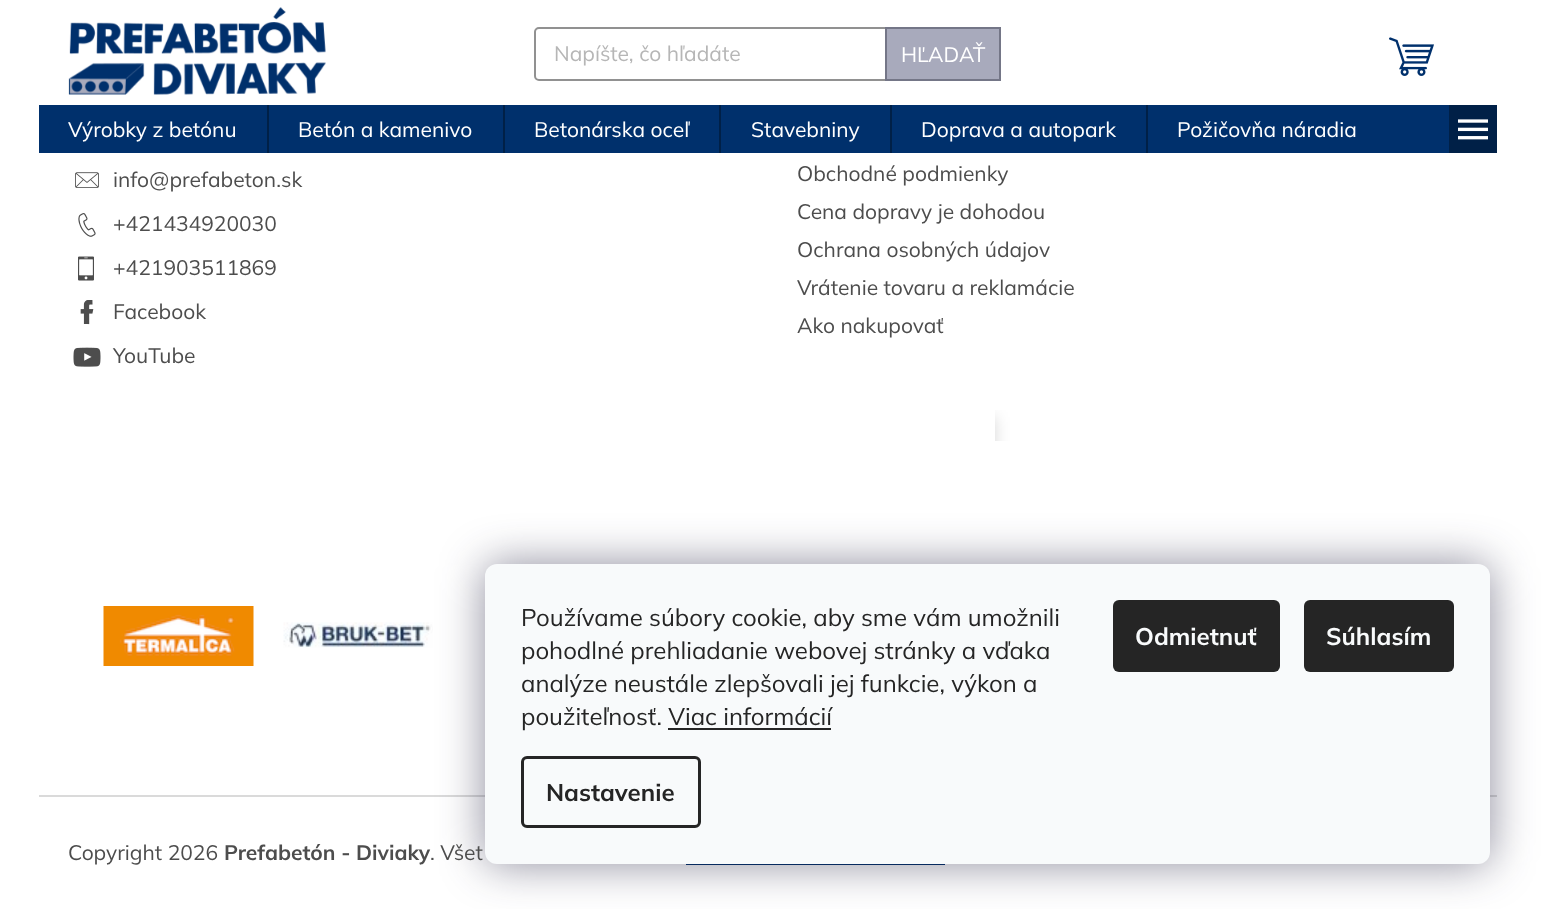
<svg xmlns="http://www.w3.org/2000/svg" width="1557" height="909">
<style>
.a{font:21px Mulish;fill:#b6b6b6}
.b{font:21px Mulish;fill:#fff}
.c{font:21px Mulish;fill:#4d4d4d}
.d{font:bold 21px Mulish;fill:#4d4d4d}
.e{font:24px Mulish;fill:#252525}
.f{font:bold 24px Mulish;fill:#252525}
.g{font:bold 24px Mulish;fill:#f8fafb}
</style>
<defs>
<clipPath id="clip1"><path d="M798 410h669v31H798z"/></clipPath>
<clipPath id="clip2"><path d="M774 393h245v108h-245zm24 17h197v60h-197z" clip-rule="evenodd"/></clipPath>
</defs>
<rect width="100%" height="100%" fill="#fff"/>
<image href="1.png" x="68" y="7" width="258" height="88"/>
<rect fill="none" stroke="#919191" stroke-width="2" x="535" y="28" width="465" height="52" rx="4"/>
<path fill="#a8aabc" stroke="#747687" stroke-width="2" d="M886 28h114v52H886z"/>
<image href="2.png" x="1389" y="37" width="45" height="39"/>
<path fill="#00306c" d="M39 105h1410v48H39z"/>
<path fill="#002047" d="M267 105h2v48H267z"/>
<path fill="#002047" d="M503 105h2v48H503z"/>
<path fill="#002047" d="M719 105h2v48H719z"/>
<path fill="#002047" d="M890 105h2v48H890z"/>
<path fill="#002047" d="M1146 105h2v48H1146z"/>
<path fill="#002047" d="M1449 105h48v48H1449z"/>
<image href="3.png" x="1458" y="119" width="30" height="21"/>
<image href="4.png" x="75" y="172" width="24" height="16"/>
<image href="5.png" x="78" y="213" width="18" height="24"/>
<image href="6.png" x="78" y="256" width="16" height="25"/>
<image href="7.png" x="80" y="300" width="14" height="25"/>
<image href="8.png" x="73" y="347" width="28" height="20"/>
<g clip-path="url(#clip1)">
<g clip-path="url(#clip2)">
<path fill="#00000029" filter="blur(7.5px)" d="M798 417h197v60H798z"/>
</g>
</g>
<path fill="#ffffffe6" d="M994 412h1v29H994z"/>
<image href="9.png" x="103" y="606" width="151" height="60"/>
<image href="10.png" x="283" y="622" width="150" height="26"/>
<path fill="#dadada" d="M39 795h1458v2H39z"/>
<path fill="#00306c" d="M686 864h259v1H686z"/>
<rect fill="#1b193980" filter="blur(22.5px)" x="485" y="564" width="1005" height="300" rx="12"/>
<rect fill="#f8fafb" x="485" y="564" width="1005" height="300" rx="12"/>
<path fill="#252525" d="M668 728h163v2H668z"/>
<rect fill="none" stroke="#252525" stroke-width="3" x="522.5" y="757.5" width="177" height="69" rx="4.5"/>
<rect fill="#252525" x="1113" y="600" width="167" height="72" rx="6"/>
<rect fill="#252525" x="1304" y="600" width="150" height="72" rx="6"/>
<text class="a" x="554" y="61">Napíšte, čo hľadáte</text>
<text class="b" x="901" y="62">HĽADAŤ</text>
<text class="b" x="68" y="137">Výrobky z betónu</text>
<text class="b" x="298" y="137">Betón a kamenivo</text>
<text class="b" x="534" y="137">Betonárska oceľ</text>
<text class="b" x="751" y="137">Stavebniny</text>
<text class="b" x="921" y="137">Doprava a autopark</text>
<text class="b" x="1177" y="137">Požičovňa náradia</text>
<text class="c" x="113" y="187">info@prefabeton.sk</text>
<text class="c" x="113" y="231">+421434920030</text>
<text class="c" x="113" y="275">+421903511869</text>
<text class="c" x="113" y="319">Facebook</text>
<text class="c" x="113" y="363">YouTube</text>
<text class="c" x="797" y="181">Obchodné podmienky</text>
<text class="c" x="797" y="219">Cena dopravy je dohodou</text>
<text class="c" x="797" y="257">Ochrana osobných údajov</text>
<text class="c" x="797" y="295">Vrátenie tovaru a reklamácie</text>
<text class="c" x="797" y="333">Ako nakupovať</text>
<text class="c" x="68" y="860">Copyright 2026</text>
<text class="d" x="224" y="860">Prefabetón - Diviaky</text>
<text class="c" x="430" y="860">. Všet</text>
<text class="e" x="521" y="626">Používame súbory cookie, aby sme vám umožnili</text>
<text class="e" x="521" y="659">pohodlné prehliadanie webovej stránky a vďaka</text>
<text class="e" x="521" y="692">analýze neustále zlepšovali jej funkcie, výkon a</text>
<text class="e" x="521" y="725">použiteľnosť. Viac informácií</text>
<text class="f" x="546" y="801">Nastavenie</text>
<text class="g" x="1135" y="645">Odmietnuť</text>
<text class="g" x="1326" y="645">Súhlasím</text>
</svg>
